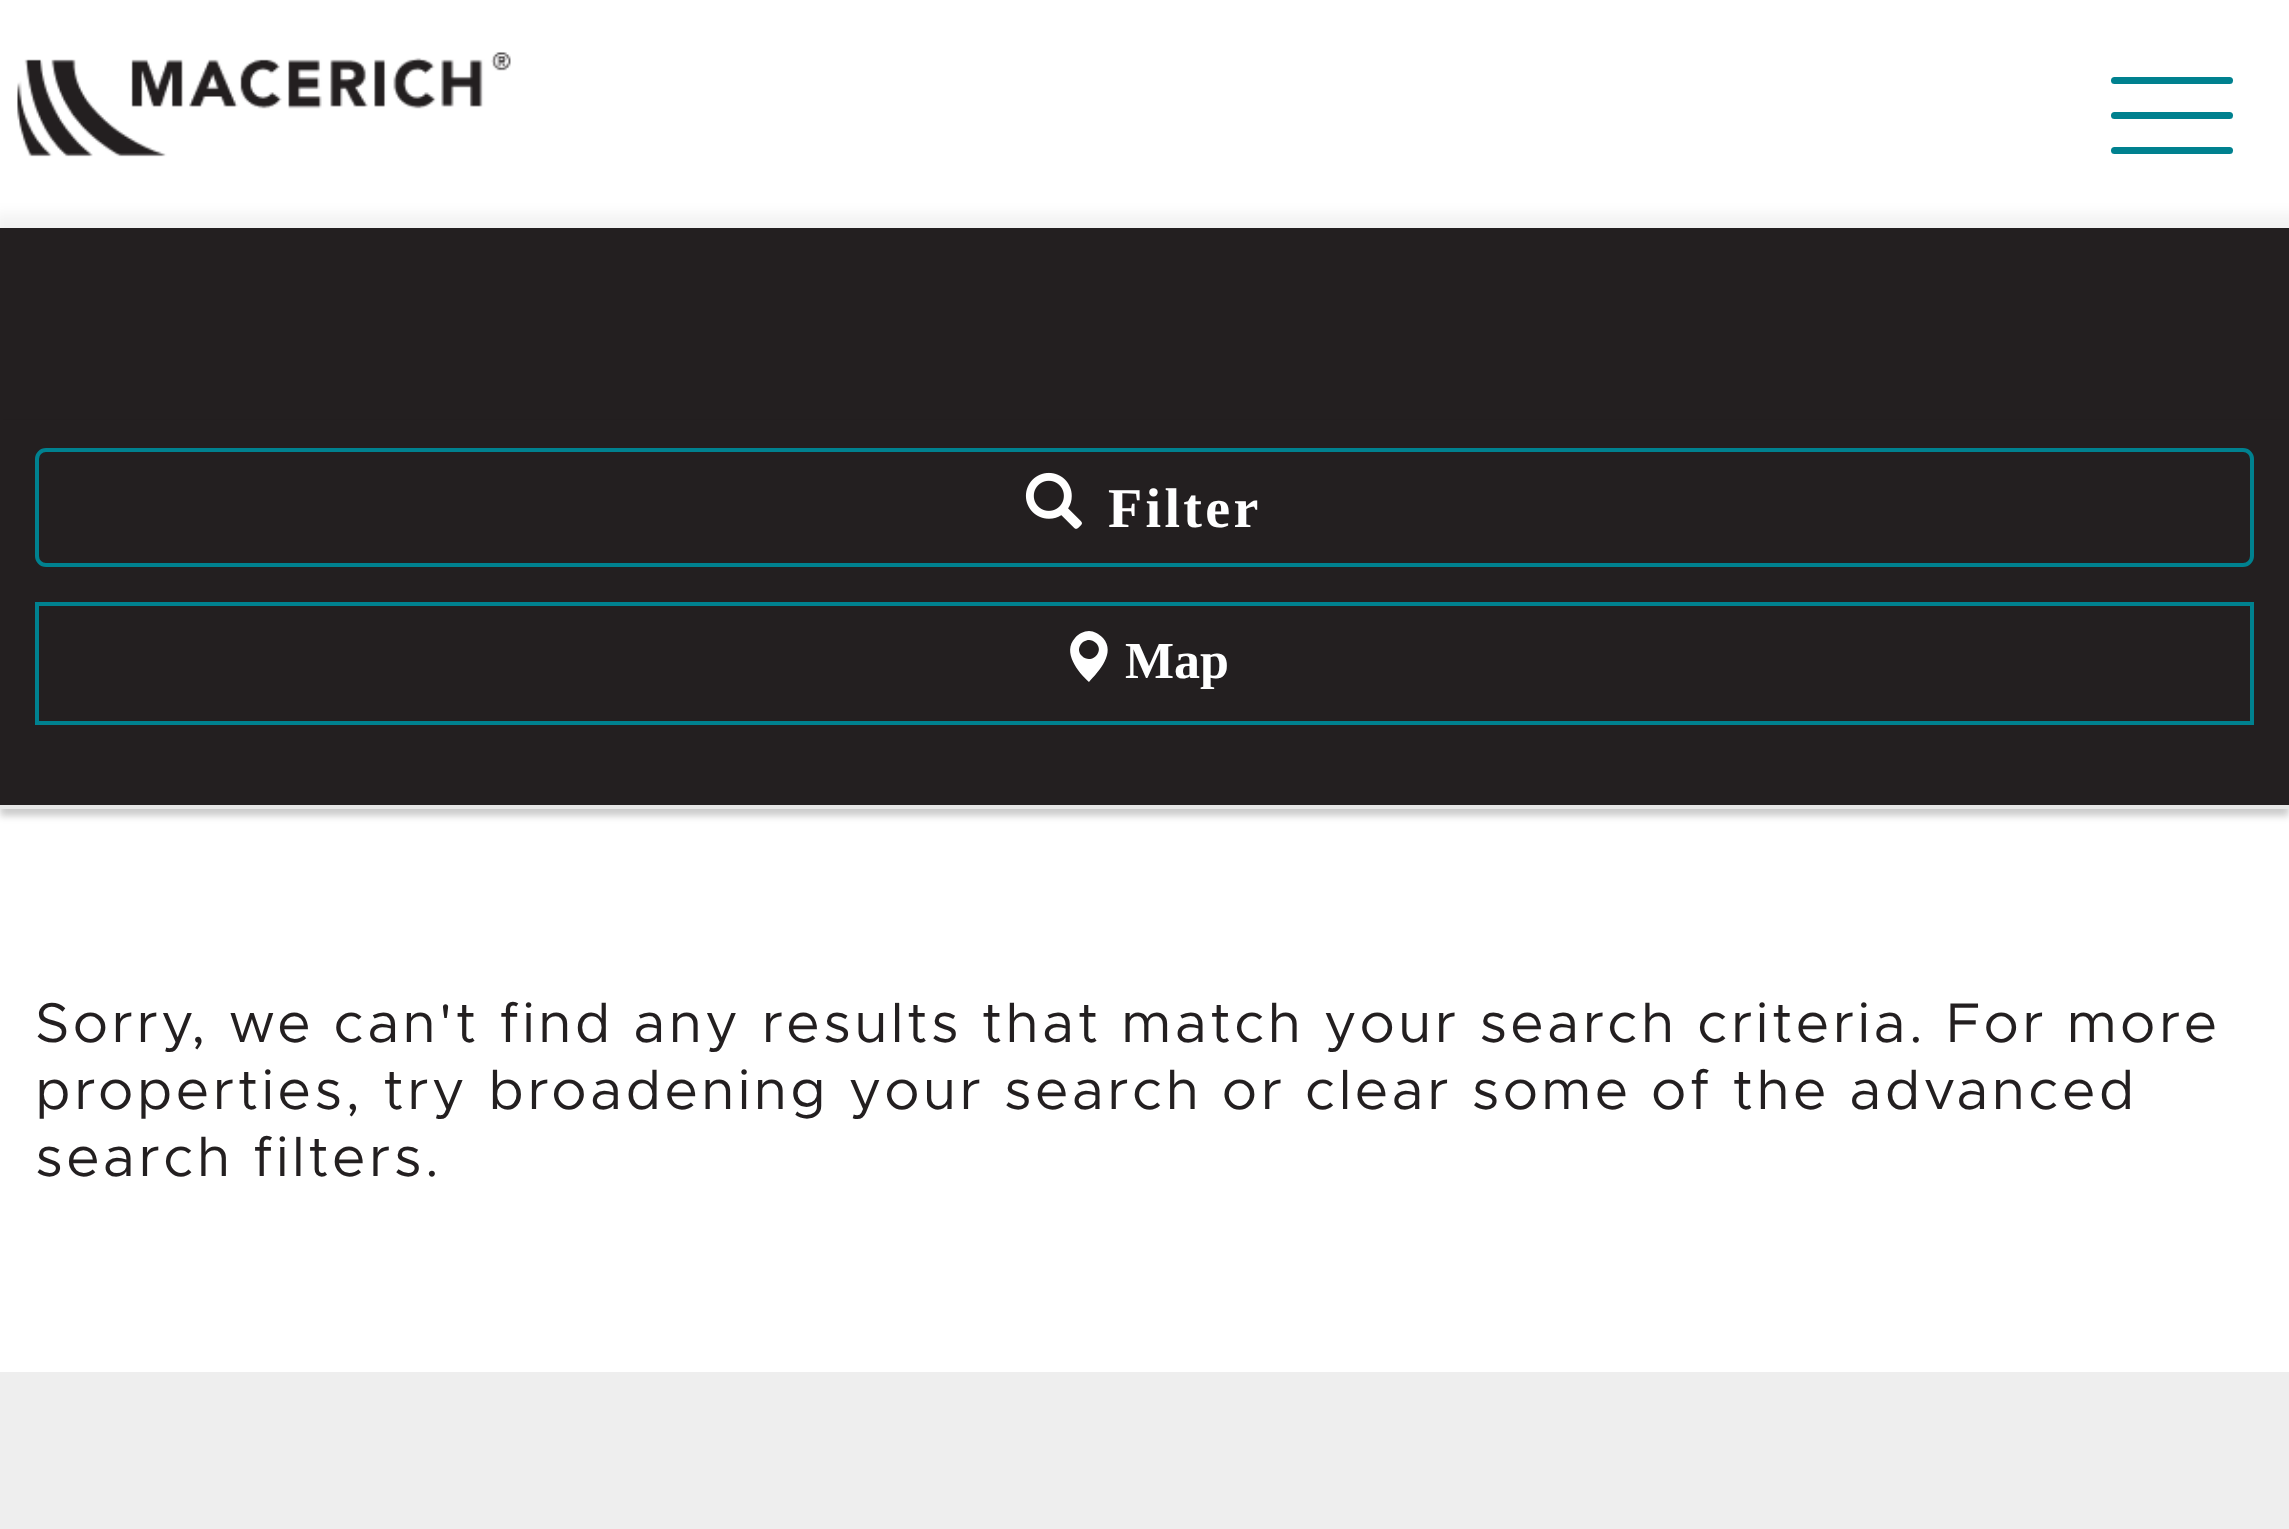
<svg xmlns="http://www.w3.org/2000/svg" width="2289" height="1529">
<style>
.a{font:bold 56px Liberation Serif;letter-spacing:3.35px;fill:#fff}
.b{font:bold 52px Liberation Serif;fill:#fff}
.c{font:56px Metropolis;letter-spacing:3.35px;fill:#231f20}
</style>
<rect width="100%" height="100%" fill="#fff"/>
<image href="1.png" x="17" y="52" width="494" height="105"/>
<rect fill="#00818f" x="2111" y="77" width="122" height="7" rx="3.5"/>
<rect fill="#00818f" x="2111" y="112" width="122" height="7" rx="3.5"/>
<rect fill="#00818f" x="2111" y="147" width="122" height="7" rx="3.5"/>
<path fill="#0000000d" filter="blur(7px)" d="M-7 214h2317v220H-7z"/>
<path fill="#231f20" d="M0 228h2289v192H0z"/>
<path fill="#00000033" filter="blur(3.5px)" d="M0 427h2289v389H0z"/>
<path fill="#231f20" d="M0 420h2289v385H0z"/>
<path fill="#e7e7e7" d="M0 805h2289v4H0z"/>
<rect fill="none" stroke="#00818f" stroke-width="4" x="37" y="450" width="2215" height="115" rx="9"/>
<image href="2.png" x="1025" y="472" width="57" height="57"/>
<path fill="none" stroke="#00818f" stroke-width="4" d="M37 604h2215v119H37z"/>
<path fill="#fff" d="M1089 631c5 0 10 3 14 7c13 15-4 33-14 44c-11-10-27-30-14-44c3-4 9-7 14-7zm7 12c-9-9-23 4-14 13c9 9 23-4 14-13z"/>
<path fill="#eee" d="M0 1372h2289v157H0z"/>
<text class="a" x="1108" y="527">Filter</text>
<text class="b" x="1125" y="678">Map</text>
<text class="c" x="35" y="1042">Sorry, we can't find any results that match your search criteria. For more</text>
<text class="c" x="35" y="1109">properties, try broadening your search or clear some of the advanced</text>
<text class="c" x="35" y="1176">search filters.</text>
</svg>
